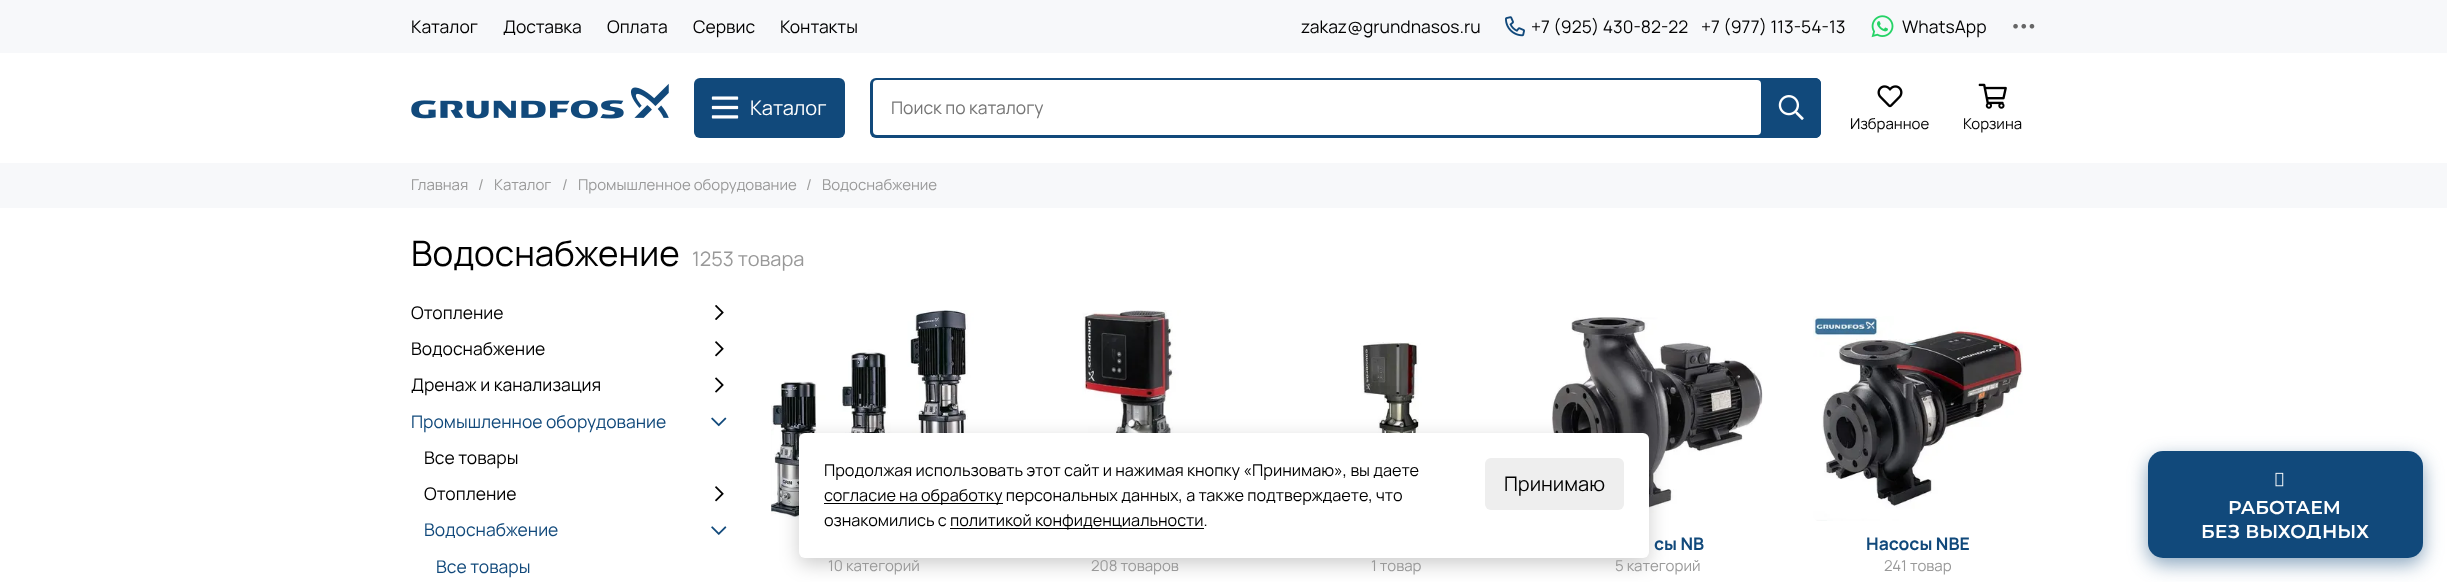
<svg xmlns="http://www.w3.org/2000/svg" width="2447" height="582">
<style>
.a{font:17.5px Manrope;fill:#000}
.b{font:20px Manrope;fill:#fff}
.c{font:17.5px Manrope;fill:#757575}
.d{font:15px Manrope;fill:#000}
.e{font:15px Manrope;fill:#999}
.f{font:35px Manrope;fill:#000}
.g{font:20px Manrope;fill:#999}
.h{font:17.5px Manrope;fill:#11497b}
.i{font:bold 17.5px Manrope;fill:#11497b}
.j{font:100 18.75px Montserrat;fill:#fff}
.k{font:16.25px Manrope;fill:#000}
.l{font:20px Manrope;fill:#000}
</style>
<defs>
<clipPath id="clip1"><path d="M2201 520h168v19H2201z"/></clipPath>
</defs>
<rect width="100%" height="100%" fill="#fff"/>
<path fill="#f7f8fa" d="M0 0h2447v53H0z"/>
<image href="1.png" x="1505" y="16" width="20" height="21"/>
<image href="2.png" x="1871" y="15" width="23" height="23"/>
<image href="3.png" x="2013" y="23" width="22" height="6"/>
<image href="4.png" x="411" y="83" width="258" height="36"/>
<rect fill="#11497b" x="694" y="78" width="151" height="60" rx="6"/>
<image href="5.png" x="711" y="96" width="28" height="23"/>
<rect fill="#11497b" x="870" y="78" width="951" height="60" rx="6"/>
<rect fill="#fff" x="873" y="80" width="888" height="55" rx="4"/>
<path fill="#11497b" d="M1761 78h54c3.5 0 6 2.5 6 6v48c0 3.5-2.5 6-6 6h-54z"/>
<image href="6.png" x="1778" y="95" width="26" height="25"/>
<image href="7.png" x="1877" y="85" width="26" height="23"/>
<image href="8.png" x="1978" y="83" width="29" height="26"/>
<path fill="#f7f8fa" d="M0 163h2447v45H0z"/>
<image href="9.png" x="715" y="305" width="9" height="15"/>
<image href="10.png" x="715" y="341" width="9" height="16"/>
<image href="11.png" x="715" y="377" width="9" height="16"/>
<image href="12.png" x="711" y="417" width="16" height="10"/>
<image href="10.png" x="715" y="486" width="9" height="16"/>
<image href="13.png" x="711" y="526" width="16" height="9"/>
<image href="14.png" x="771" y="310" width="203" height="209"/>
<image href="15.png" x="1082" y="310" width="99" height="123"/>
<image href="16.png" x="1361" y="342" width="61" height="91"/>
<image href="17.png" x="1551" y="317" width="212" height="196"/>
<image href="18.png" x="1813" y="316" width="210" height="205"/>
<rect fill="#11497b80" filter="blur(9.5px)" x="2148" y="458" width="275" height="106" rx="15"/>
<rect fill="#11497b" x="2148" y="451" width="275" height="107" rx="15"/>
<image href="19.png" x="2275" y="472" width="9" height="15"/>
<rect fill="#00000033" filter="blur(9.5px)" x="799" y="439" width="850" height="125" rx="6"/>
<rect fill="#fff" x="799" y="433" width="850" height="125" rx="6"/>
<path fill="#000" d="M824 503h179v1H824z"/>
<path fill="#000" d="M950 528h254v1H950z"/>
<rect fill="#eee" x="1485" y="458" width="139" height="52" rx="6"/>
<text class="a" x="411" y="33">Каталог</text>
<text class="a" x="503" y="33">Доставка</text>
<text class="a" x="607" y="33">Оплата</text>
<text class="a" x="693" y="33">Сервис</text>
<text class="a" x="780" y="33">Контакты</text>
<text class="a" x="1301" y="33">zakaz@grundnasos.ru</text>
<text class="a" x="1531" y="33">+7 (925) 430-82-22</text>
<text class="a" x="1701" y="33">+7 (977) 113-54-13</text>
<text class="a" x="1902" y="33">WhatsApp</text>
<text class="b" x="750" y="115">Каталог</text>
<text class="c" x="891" y="114">Поиск по каталогу</text>
<text class="d" x="1850" y="129">Избранное</text>
<text class="d" x="1963" y="129">Корзина</text>
<text class="e" x="411" y="190">Главная</text>
<text class="e" x="478" y="190">/</text>
<text class="e" x="494" y="190">Каталог</text>
<text class="e" x="562" y="190">/</text>
<text class="e" x="578" y="190">Промышленное оборудование</text>
<text class="e" x="806" y="190">/</text>
<text class="e" x="822" y="190">Водоснабжение</text>
<text class="f" x="411" y="266">Водоснабжение</text>
<text class="g" x="692" y="266">1253 товара</text>
<text class="a" x="411" y="319">Отопление</text>
<text class="a" x="411" y="355">Водоснабжение</text>
<text class="a" x="411" y="391">Дренаж и канализация</text>
<text class="h" x="411" y="428">Промышленное оборудование</text>
<text class="a" x="424" y="464">Все товары</text>
<text class="a" x="424" y="500">Отопление</text>
<text class="h" x="424" y="536">Водоснабжение</text>
<text class="h" x="436" y="573">Все товары</text>
<text class="e" x="828" y="571">10 категорий</text>
<text class="e" x="1091" y="571">208 товаров</text>
<text class="e" x="1371" y="571">1 товар</text>
<text class="i" x="1654" y="550">сы NB</text>
<text class="e" x="1615" y="571">5 категорий</text>
<text class="i" x="1866" y="550">Насосы NBE</text>
<text class="e" x="1884" y="571">241 товар</text>
<text class="j" x="2228" y="514">РАБОТАЕМ</text>
<text class="j" x="2201" y="538">БЕЗ ВЫХО</text>
<g clip-path="url(#clip1)">
<text class="j" x="2306" y="538">Д</text>
</g>
<text class="j" x="2322" y="538">НЫХ</text>
<text class="k" x="824" y="476">Продолжая использовать этот сайт и нажимая кнопку «Принимаю», вы даете</text>
<text class="k" x="824" y="501">согласие на обработку персональных данных, а также подтверждаете, что</text>
<text class="k" x="824" y="526">ознакомились с</text>
<text class="k" x="950" y="526">политикой конфиденциальности.</text>
<text class="l" x="1504" y="491">Принимаю</text>
</svg>
